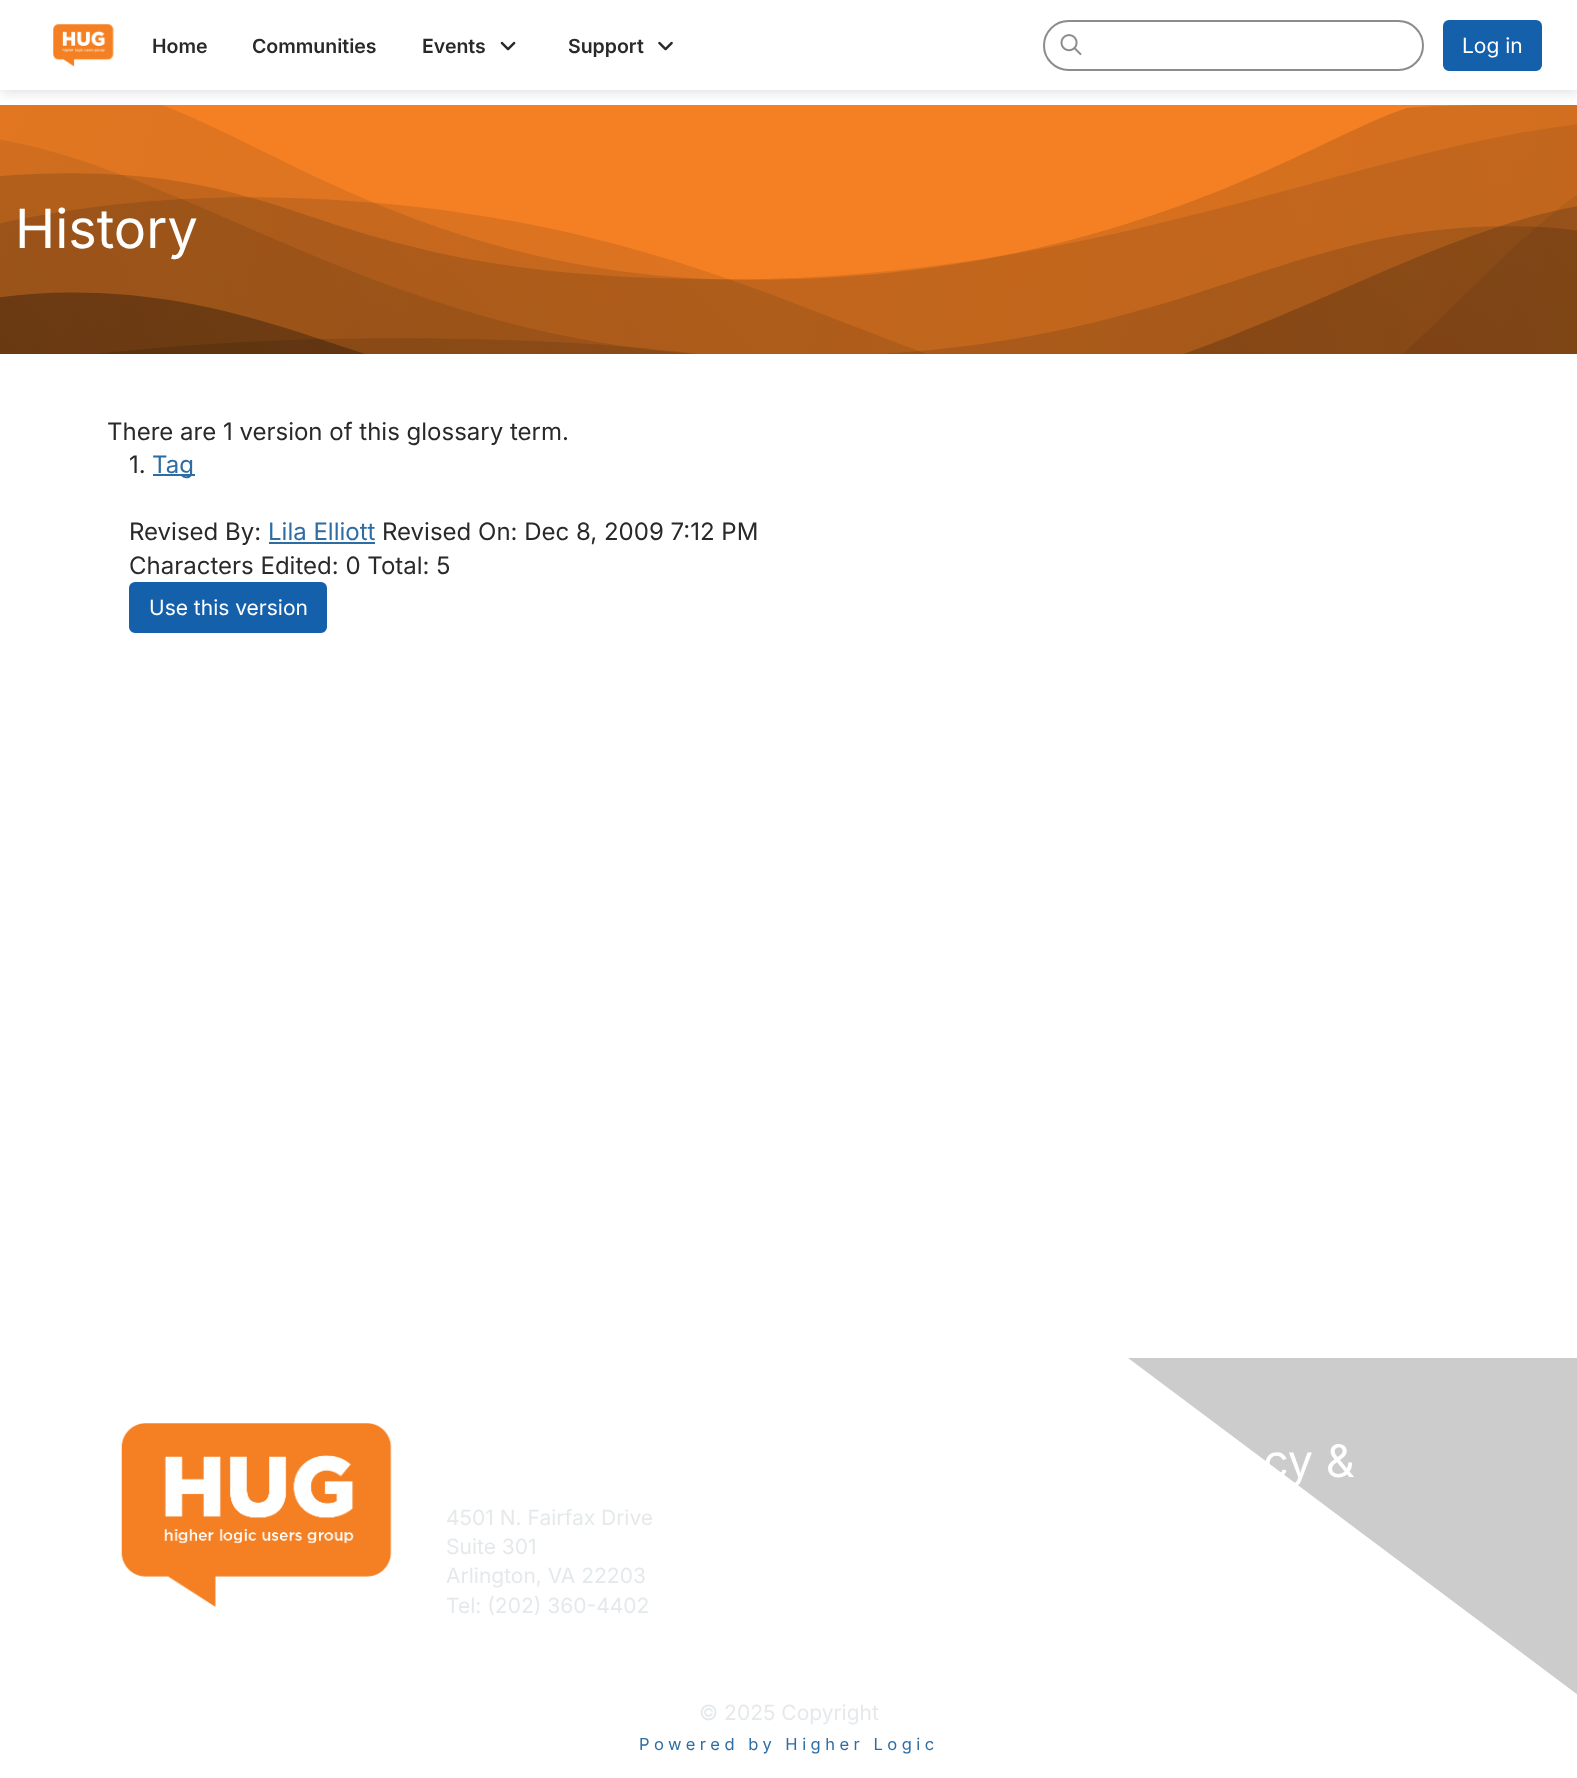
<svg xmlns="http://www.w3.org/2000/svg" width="1577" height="1778">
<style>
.a{font:600 19.5px Inter;fill:#292929}
.b{font:21px Inter;fill:#fff}
.c{font:54px Inter;fill:#fff}
.d{font:24px Inter;fill:#292929}
.e{font:24px Inter;fill:#2e6da4}
.f{font:45px Inter;fill:#fff}
.g{font:21px Inter;fill:#e5e9eb}
.h{font:16.5px Inter;letter-spacing:4.5px;fill:#2e6da4}
</style>
<defs>
<clipPath id="clip1"><path d="M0 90h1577v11H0z"/></clipPath>
</defs>
<rect width="100%" height="100%" fill="#fff"/>
<g clip-path="url(#clip1)">
<path fill="#8387913d" filter="blur(6px)" d="M0 3h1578v90H0z"/>
</g>
<image href="1.png" x="53" y="23" width="61" height="44"/>
<image href="2.png" x="500" y="41" width="16" height="10"/>
<image href="3.png" x="658" y="41" width="15" height="10"/>
<path fill="#ececec" d="M1068 22h330c13 0 24 11 24 24c0-14-11-25-24-25h-330c-13 0-24 11-24 25c0-13 11-24 24-24z"/>
<rect fill="none" stroke="#8c8c8c" stroke-width="2" x="1044" y="21" width="379" height="49" rx="24.5"/>
<image href="4.png" x="1060" y="34" width="22" height="22"/>
<rect fill="#1460aa" stroke="#1460aa" stroke-width="2" x="1444" y="21" width="97" height="49" rx="5"/>
<image href="5.png" x="0" y="105" width="1577" height="249"/>
<path fill="#2e6da4" d="M153 474h42v2H153z"/>
<path fill="#2e6da4" d="M269 542h106v2H269z"/>
<rect fill="#1460aa" stroke="#1460aa" stroke-width="2" x="130" y="583" width="196" height="49" rx="5"/>
<path fill="#ccc" d="M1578 1358v337l-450-337z"/>
<image href="6.png" x="121" y="1423" width="271" height="184"/>
<text class="a" x="152" y="53">Home</text>
<text class="a" x="252" y="53">Communities</text>
<text class="a" x="422" y="53">Events</text>
<text class="a" x="568" y="53">Support</text>
<text class="b" x="1462" y="53">Log in</text>
<text class="c" x="15" y="248">History</text>
<text class="d" x="107" y="440">There are 1 version of this glossary term.</text>
<text class="d" x="129" y="473">1.</text>
<text class="e" x="152" y="473">Tag</text>
<text class="d" x="129" y="540">Revised By:</text>
<text class="e" x="268" y="540">Lila Elliott</text>
<text class="d" x="382" y="540">Revised On: Dec 8, 2009 7:12 PM</text>
<text class="d" x="129" y="574">Characters Edited: 0 Total: 5</text>
<text class="b" x="149" y="615">Use this version</text>
<text class="f" x="1263" y="1477">cy &amp;</text>
<text class="g" x="446" y="1525">4501 N. Fairfax Drive</text>
<text class="g" x="446" y="1554">Suite 301</text>
<text class="g" x="446" y="1583">Arlington, VA 22203</text>
<text class="g" x="446" y="1613">Tel: (202) 360-4402</text>
<text class="g" x="699" y="1720">© 2025 Copyright</text>
<text class="h" x="639" y="1750">Powered by Higher Logic</text>
</svg>
